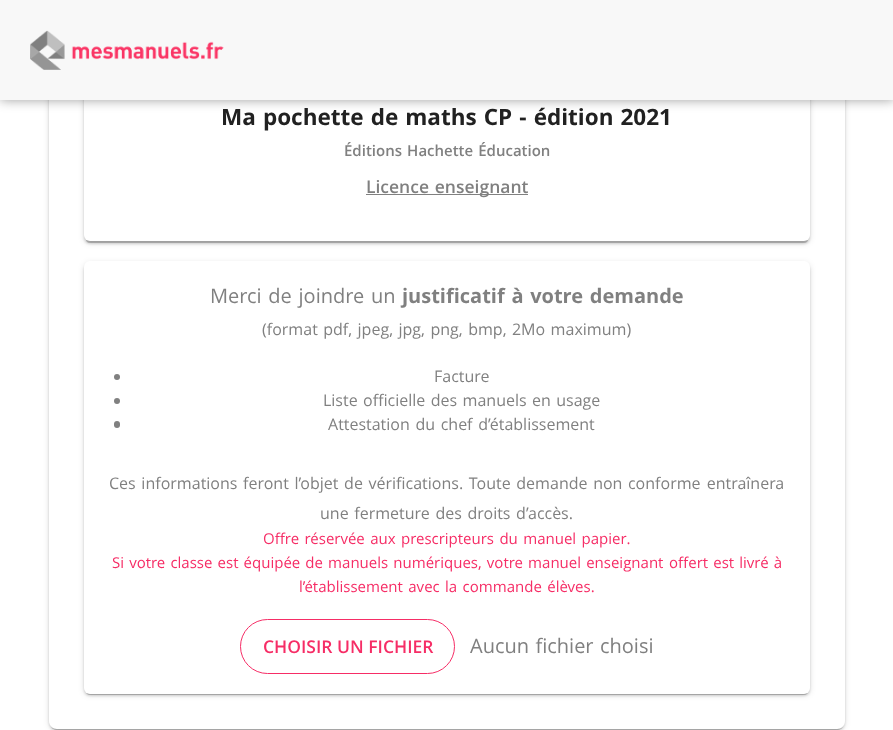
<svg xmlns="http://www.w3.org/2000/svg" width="893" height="730">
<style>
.a{font:bold 22.5px Open Sans;fill:#212121}
.b{font:600 15px Open Sans;fill:#808080}
.c{font:600 17.5px Open Sans;fill:#808080}
.d{font:20px Open Sans;fill:#808080}
.e{font:bold 20px Open Sans;fill:#808080}
.f{font:16px Open Sans;fill:#808080}
.g{font:15px Open Sans;fill:#f62d66}
.h{font:600 17.5px Open Sans;fill:#f62d66}
</style>
<rect width="100%" height="100%" fill="#fff"/>
<rect fill="#0000001f" filter="blur(3px)" x="49" y="-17" width="796" height="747" rx="8"/>
<rect fill="#00000024" filter="blur(1px)" x="49" y="-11" width="796" height="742" rx="8"/>
<rect fill="#00000033" filter="blur(0.5px)" x="51" y="-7" width="792" height="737" rx="5"/>
<path fill="#fff" d="M49-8h796v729c0 4.5-3.5 8-8 8h-780c-4.5 0-8-3.5-8-8z"/>
<rect fill="#0000001f" filter="blur(3px)" x="84" y="-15" width="726" height="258" rx="6"/>
<rect fill="#00000024" filter="blur(1px)" x="84" y="-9" width="726" height="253" rx="6"/>
<rect fill="#00000033" filter="blur(0.5px)" x="86" y="-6" width="722" height="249" rx="4"/>
<rect fill="#fff" x="84" y="-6" width="726" height="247" rx="6"/>
<path fill="#00000061" filter="blur(6px)" d="M0 0h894v100H0z"/>
<path fill="#f8f8f8" d="M0 0h893v100H0z"/>
<image href="1.png" x="30" y="30" width="194" height="40"/>
<path fill="#808080" d="M366 194h162v1H366z"/>
<rect fill="#0000001f" filter="blur(3px)" x="84" y="263" width="726" height="432" rx="6"/>
<rect fill="#00000024" filter="blur(1px)" x="84" y="264" width="726" height="432" rx="6"/>
<rect fill="#00000033" filter="blur(0.5px)" x="86" y="268" width="722" height="427" rx="4"/>
<rect fill="#fff" x="84" y="261" width="726" height="433" rx="6"/>
<circle fill="#808080" cx="117" cy="377" r="3"/>
<circle fill="#808080" cx="117" cy="401" r="3"/>
<rect fill="#808080" x="114" y="421" width="6" height="7" rx="3"/>
<rect fill="none" stroke="#f62d66" x="240.5" y="619.5" width="214" height="54" rx="27"/>
<text class="a" x="221" y="125" word-spacing="1.25">Ma pochette de maths CP - édition 2021</text>
<text class="b" x="344" y="156" word-spacing="1.25">Éditions Hachette Éducation</text>
<text class="c" x="366" y="193" word-spacing="1.25">Licence enseignant</text>
<text class="d" x="210" y="303" word-spacing="1.5">Merci de joindre un</text>
<text class="e" x="402" y="303" word-spacing="1.5">justificatif à votre demande</text>
<text class="f" x="262" y="335" word-spacing="1.25">(format pdf, jpeg, jpg, png, bmp, 2Mo maximum)</text>
<text class="f" x="434" y="382">Facture</text>
<text class="f" x="323" y="406" word-spacing="1.25">Liste officielle des manuels en usage</text>
<text class="f" x="328" y="430" word-spacing="1.5">Attestation du chef d’établissement</text>
<text class="f" x="109" y="489" word-spacing="1.5">Ces informations feront l’objet de vérifications. Toute demande non</text>
<text class="f" x="628" y="489" word-spacing="2">conforme entraînera</text>
<text class="f" x="320" y="519" word-spacing="1.5">une fermeture des droits d’accès.</text>
<text class="g" x="263" y="544" word-spacing="1.5">Offre réservée aux prescripteurs du manuel papier.</text>
<text class="g" x="112" y="568" word-spacing="1.25">Si votre classe est équipée de manuels numériques, votre manuel enseignant</text>
<text class="g" x="669" y="568" word-spacing="1.25">offert est livré à</text>
<text class="g" x="299" y="592" word-spacing="1.5">l’établissement avec la commande élèves.</text>
<text class="h" x="263" y="653">CHOISIR UN FICHIER</text>
<text class="d" x="470" y="653" word-spacing="1.25">Aucun fichier choisi</text>
</svg>
